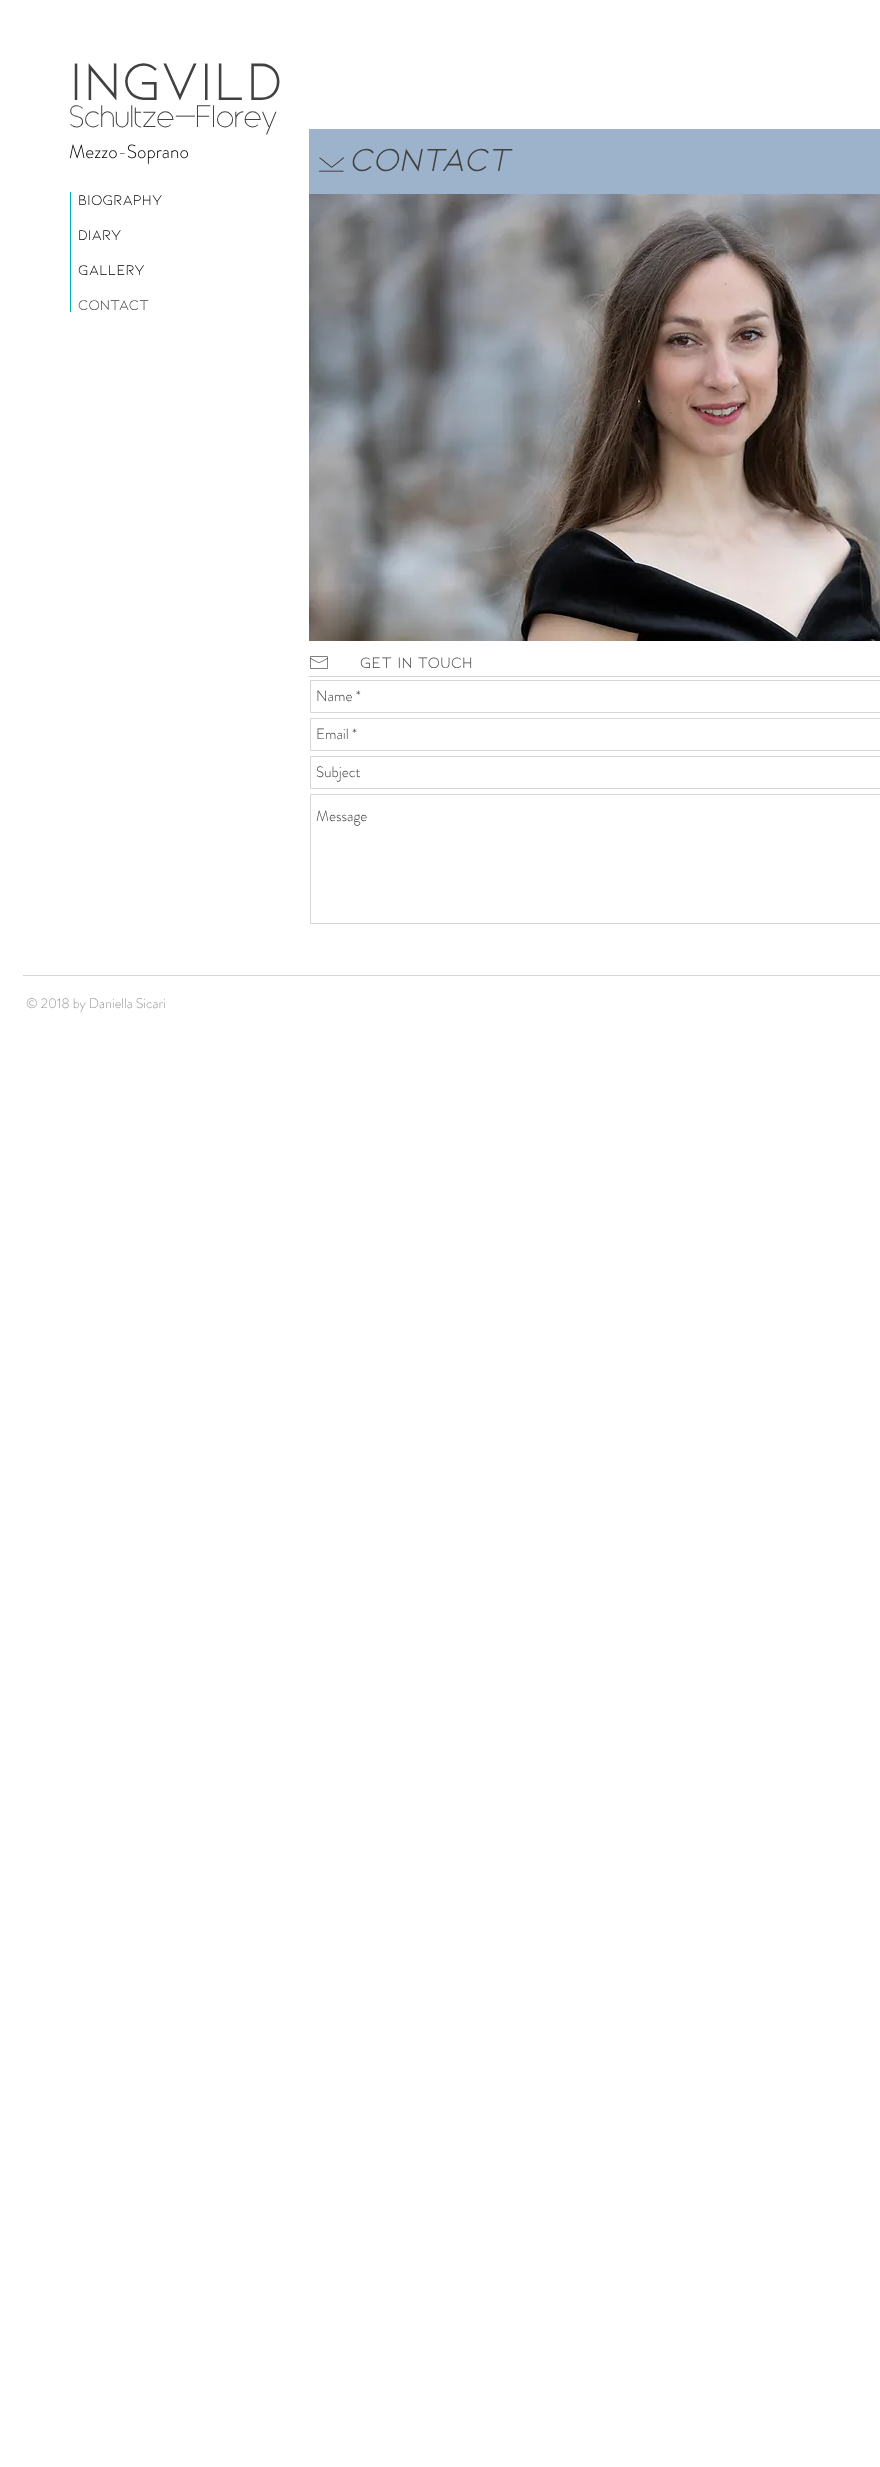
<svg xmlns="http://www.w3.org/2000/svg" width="880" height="2467">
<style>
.a{font:56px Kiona;fill:#414141}
.b{font:31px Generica;fill:#414141}
.c{font:300 19px 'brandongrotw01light';fill:#000}
.d{font:15px Kiona;fill:#000}
.e{font:15px Kiona;fill:#414141}
.f{font:italic 34px Kiona;fill:#414141}
.g{font:16px Kiona;fill:#414141}
.h{font:300 15px 'brandongrotw01light';fill:#414141}
.i{font:300 14px 'brandongrotw01light';fill:#999}
</style>
<rect width="100%" height="100%" fill="#fff"/>
<path fill="#01b1af" d="M70 192h1v120H70z"/>
<path fill="#9db3cc" d="M309 129h571v65H309z"/>
<image href="1.png" x="319" y="157" width="25" height="15"/>
<image href="2.png" x="309" y="194" width="571" height="447"/>
<image href="3.png" x="310" y="656" width="18" height="13"/>
<path fill="#d6d6d4" d="M309 676h571v1H309z"/>
<path fill="none" stroke="#d6d6d4" d="M310.5 680.5h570v32H310.5z"/>
<path fill="none" stroke="#d6d6d4" d="M310.5 718.5h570v32H310.5z"/>
<path fill="none" stroke="#d6d6d4" d="M310.5 756.5h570v32H310.5z"/>
<path fill="none" stroke="#d6d6d4" d="M310.5 794.5h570v129H310.5z"/>
<path fill="#d6d6d4" d="M23 975h857v1H23z"/>
<text class="a" x="69" y="100">INGVILD</text>
<text class="b" x="69" y="127">Schultze-Florey</text>
<text class="c" x="69" y="158">Mezzo-Soprano</text>
<text class="d" x="78" y="205">Biography</text>
<text class="d" x="78" y="240">Diary</text>
<text class="d" x="78" y="275">Gallery</text>
<text class="e" x="78" y="310">Contact</text>
<text class="f" x="353" y="171">Contact</text>
<text class="g" x="360" y="668">Get in touch</text>
<text class="h" x="316" y="701">Name *</text>
<text class="h" x="316" y="739">Email *</text>
<text class="h" x="316" y="777">Subject</text>
<text class="h" x="316" y="821">Message</text>
<text class="i" x="26" y="1008">© 2018 by Daniella Sicari</text>
</svg>
